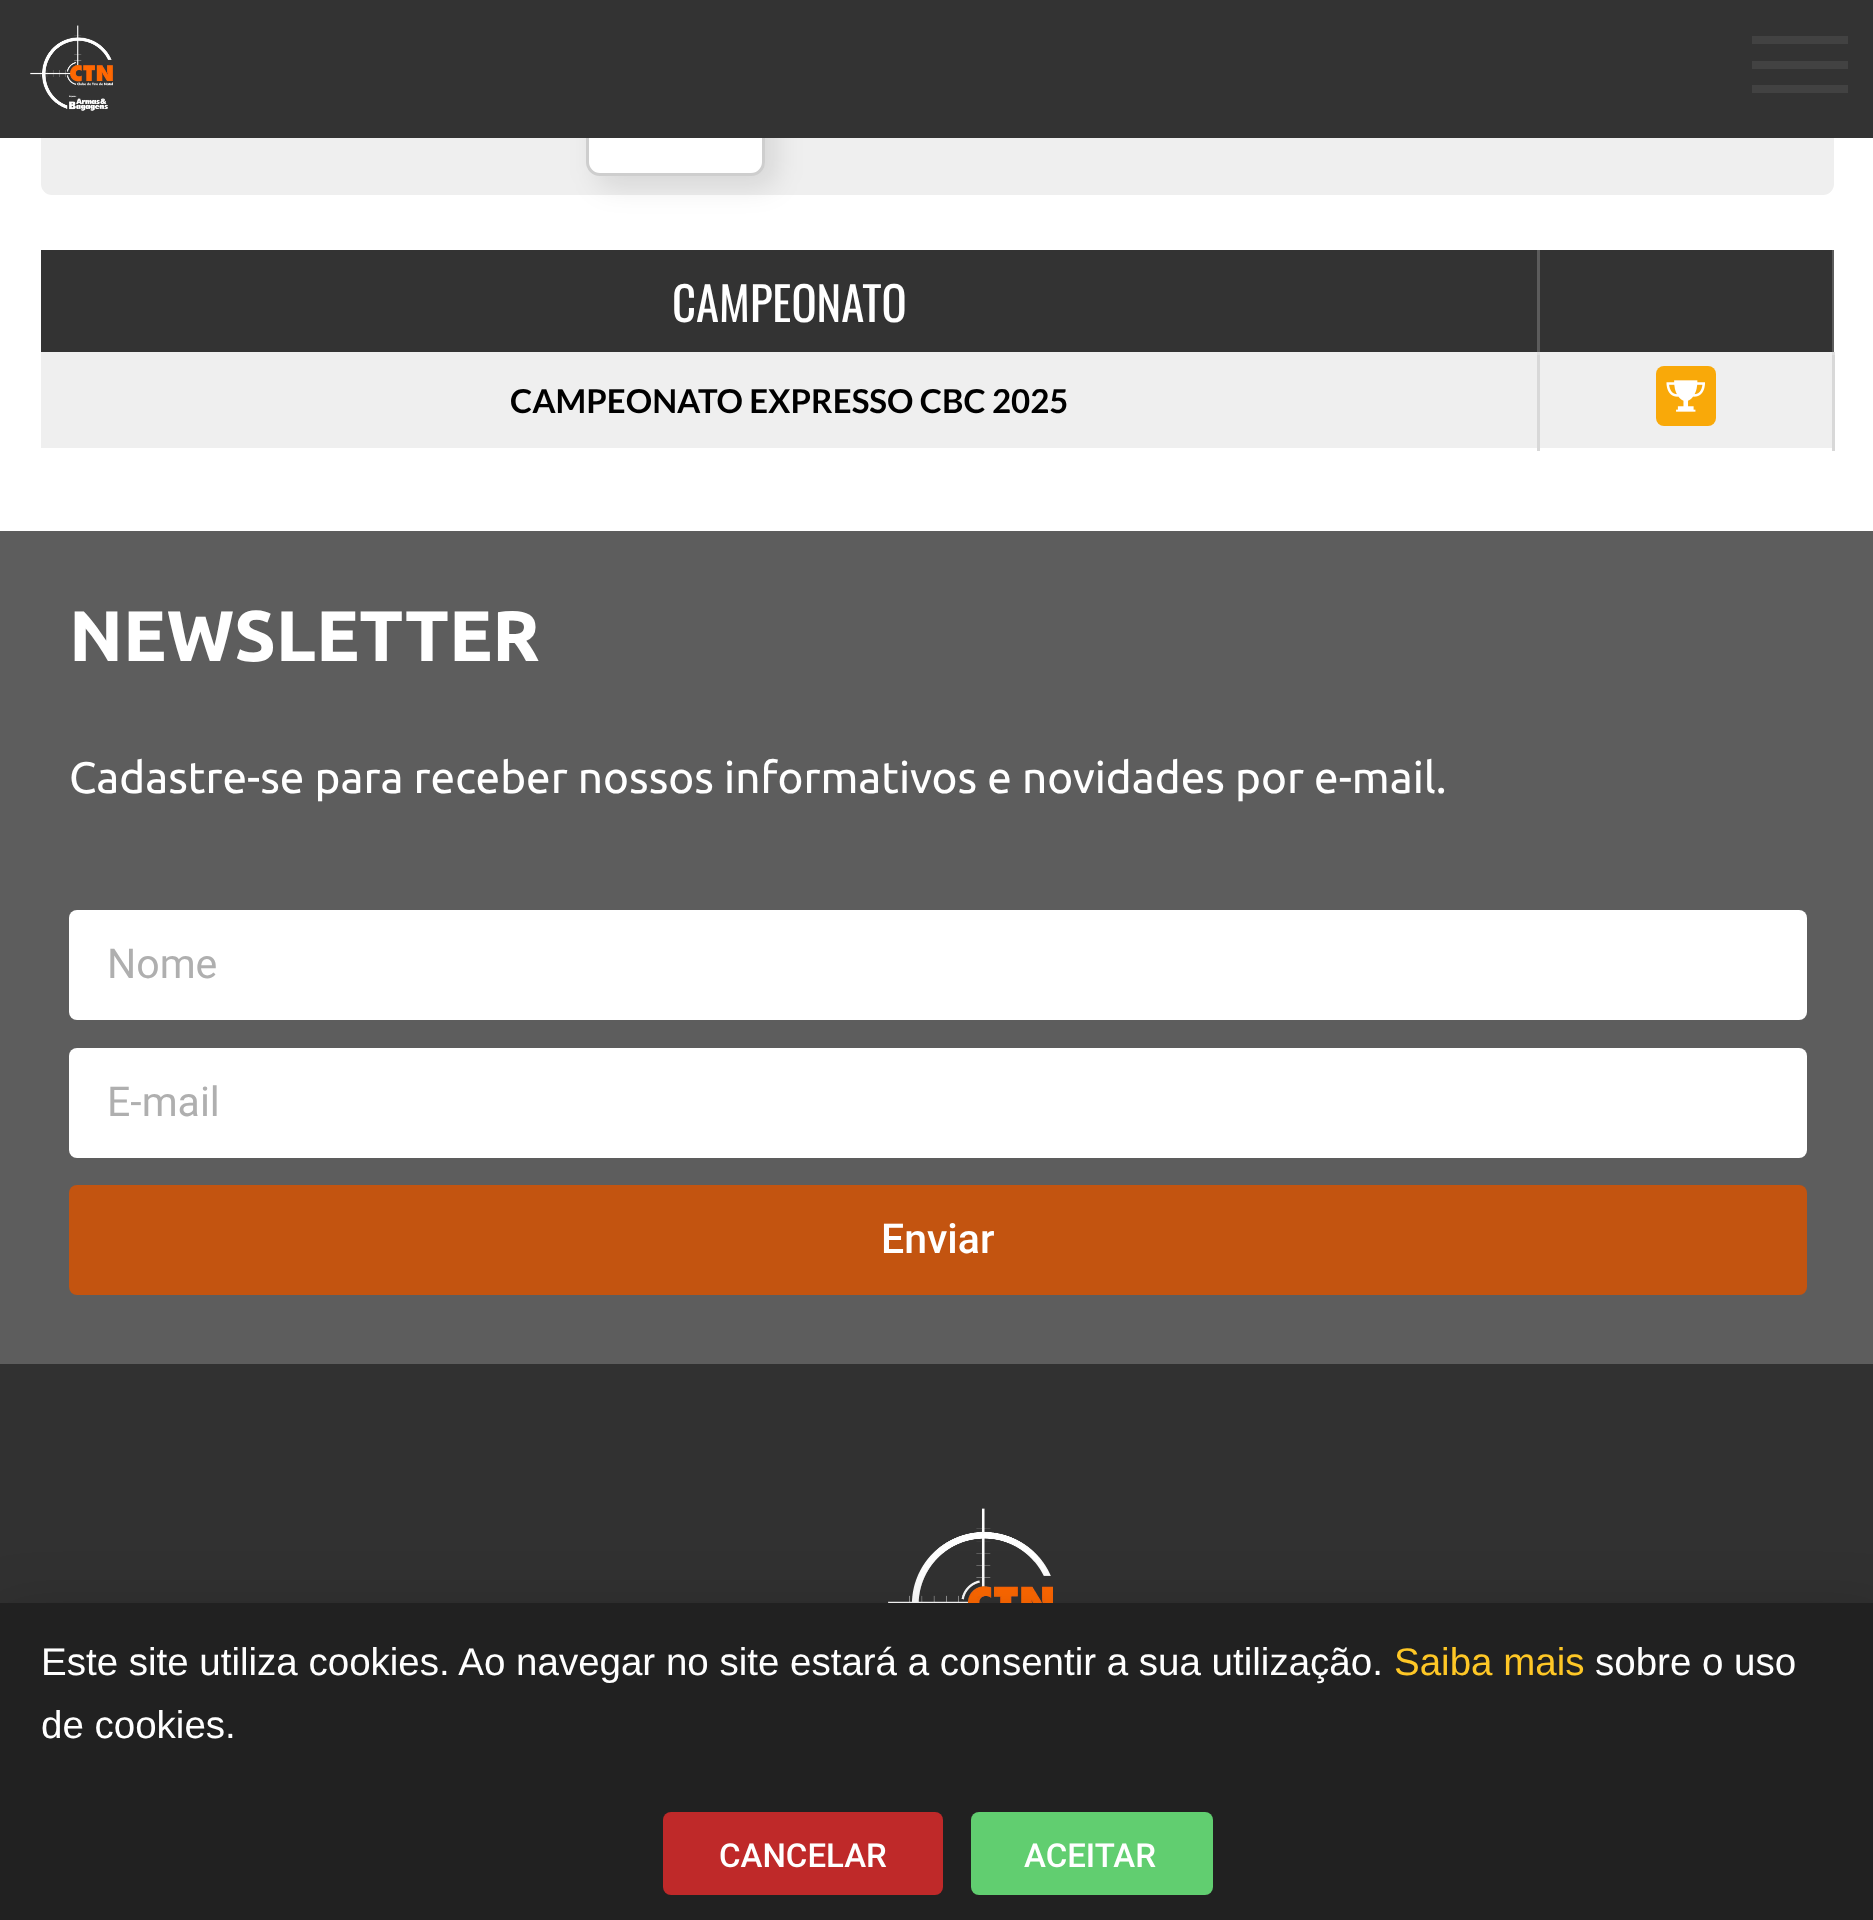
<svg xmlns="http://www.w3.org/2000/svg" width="1873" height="1920">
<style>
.a{font:46.75px Oswald;fill:#fff}
.b{font:bold 33px Lato;fill:#000}
.c{font:bold 71.5px Ubuntu;fill:#fff}
.d{font:44px Ubuntu;fill:#fff}
.e{font:41px Roboto;fill:#afafaf}
.f{font:500 41px Roboto;fill:#fff}
.g{font:38.5px Liberation Sans;fill:#fff}
.h{font:38.5px Liberation Sans;fill:#fec726}
.i{font:500 33px Roboto;fill:#fff}
</style>
<rect width="100%" height="100%" fill="#fff"/>
<rect fill="#efefef" x="41" y="58" width="1793" height="137" rx="11"/>
<rect fill="#0000001a" filter="blur(14px)" x="597" y="88" width="179" height="99" rx="14"/>
<rect fill="#fff" stroke="#cecece" stroke-width="3" x="587.5" y="78.5" width="176" height="96" rx="12.5"/>
<path fill="#333" d="M0 0h1873v138H0z"/>
<image href="1.png" x="30" y="25" width="83" height="86"/>
<path fill="#424242" d="M1752 61h96v8H1752z"/>
<path fill="#424242" d="M1752 36h96v8H1752z"/>
<path fill="#424242" d="M1752 85h96v8H1752z"/>
<path fill="#333" d="M41 250h1496v102H41z"/>
<path fill="#5c5c5c" d="M1537 250h3v102H1537z"/>
<path fill="#333" d="M1540 250h292v102H1540z"/>
<path fill="#5c5c5c" d="M1832 250h2v102H1832z"/>
<path fill="#efefef" d="M41 352h1791v96H41z"/>
<path fill="#d8d8d8" d="M1537 352h3v99H1537z"/>
<path fill="#e0e0e0" d="M1537 352h3v3H1537z"/>
<path fill="#d8d8d8" d="M1832 352h3v99H1832z"/>
<path fill="#e0e0e0" d="M1832 352h3v3H1832z"/>
<rect fill="#f9a909" x="1656" y="366" width="60" height="60" rx="8"/>
<image href="2.png" x="1666" y="380" width="39" height="32"/>
<path fill="#5d5d5d" d="M0 531h1873v833H0z"/>
<rect fill="#fff" x="69" y="910" width="1738" height="110" rx="8"/>
<rect fill="#fff" x="69" y="1048" width="1738" height="110" rx="8"/>
<rect fill="#c35410" x="69" y="1185" width="1738" height="110" rx="8"/>
<path fill="#313131" d="M0 1364h1873v239H0z"/>
<image href="3.png" x="888" y="1508" width="165" height="95"/>
<path fill="#00000033" filter="blur(31.5px)" d="M-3 1617h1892v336H-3z"/>
<path fill="#212121" d="M0 1603h1873v317H0z"/>
<rect fill="#bf2929" x="663" y="1812" width="280" height="83" rx="8"/>
<rect fill="#61ce70" x="971" y="1812" width="242" height="83" rx="8"/>
<text class="a" x="672" y="322">CAMPEONATO</text>
<text class="b" x="510" y="413">CAMPEONATO EXPRESSO CBC 2025</text>
<text class="c" x="69" y="661">NEWSLETTER</text>
<text class="d" x="69" y="793">Cadastre-se para receber nossos informativos e novidades por e-mail.</text>
<text class="e" x="107" y="978">Nome</text>
<text class="e" x="107" y="1116">E-mail</text>
<text class="f" x="881" y="1253">Enviar</text>
<text class="g" x="41" y="1675">Este site utiliza cookies. Ao navegar no site estará a consentir a sua utilização.</text>
<text class="h" x="1394" y="1675">Saiba mais</text>
<text class="g" x="1595" y="1675">sobre o uso</text>
<text class="g" x="41" y="1738">de cookies.</text>
<text class="i" x="719" y="1867">CANCELAR</text>
<text class="i" x="1024" y="1867">ACEITAR</text>
</svg>
